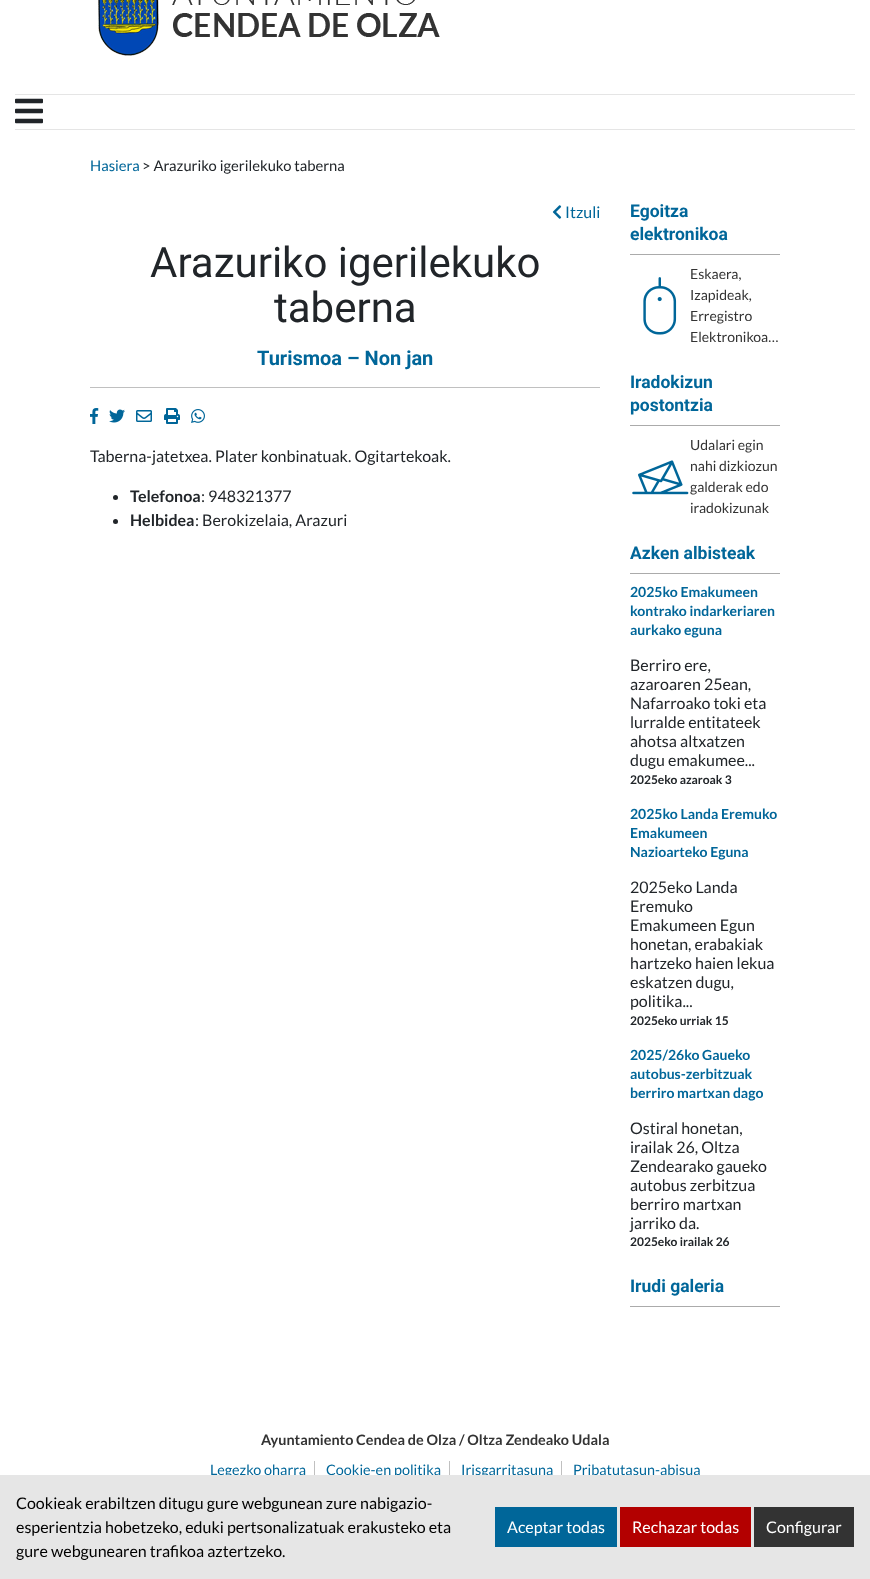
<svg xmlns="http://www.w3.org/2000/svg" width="870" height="1579">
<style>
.a{font:14.75px Lato;fill:#069}
.b{font:14.75px Lato;fill:#212529}
.c{font:16px Lato;fill:#069}
.d{font:42px Roboto;fill:#212529}
.e{font:bold 20px Roboto;fill:#069}
.f{font:16px Lato;fill:#212529}
.g{font:bold 16px Lato;fill:#212529}
.h{font:bold 17.5px Roboto;fill:#069}
.i{font:14px Lato;fill:#333}
.j{font:bold 14px Lato;fill:#069}
.k{font:bold 12px Lato;fill:#212529}
.l{font:bold 14.4px Lato;fill:#333}
.m{font:14.4px Lato;fill:#069}
.n{font:16px Lato;fill:#000}
.o{font:16px Lato;fill:#fff}
</style>
<rect width="100%" height="100%" fill="#fff"/>
<image href="1.png" x="98" y="0" width="342" height="56"/>
<path fill="#e5e5e5" d="M15 94h840v1H15z"/>
<path fill="#e5e5e5" d="M15 129h840v1H15z"/>
<image href="2.png" x="15" y="98" width="28" height="26"/>
<image href="3.png" x="552" y="205" width="10" height="14"/>
<path fill="#c0c0c0" d="M90 387h510v1H90z"/>
<image href="4.png" x="90" y="408" width="9" height="16"/>
<image href="5.png" x="109" y="409" width="16" height="14"/>
<image href="6.png" x="136" y="410" width="16" height="12"/>
<image href="7.png" x="164" y="408" width="16" height="16"/>
<image href="8.png" x="191" y="409" width="14" height="14"/>
<circle fill="#212529" cx="115.5" cy="497.5" r="2.5"/>
<circle fill="#212529" cx="115.5" cy="521.5" r="2.5"/>
<path fill="#ababab" d="M630 254h150v1H630z"/>
<image href="9.png" x="643" y="277" width="34" height="58"/>
<path fill="#ababab" d="M630 425h150v1H630z"/>
<image href="10.png" x="632" y="460" width="57" height="35"/>
<path fill="#ababab" d="M630 573h150v1H630z"/>
<path fill="#ababab" d="M630 1306h150v1H630z"/>
<path fill="#c0c0c0" d="M314 1461h1v17H314z"/>
<path fill="#c0c0c0" d="M449 1461h1v17H449z"/>
<path fill="#c0c0c0" d="M561 1461h1v17H561z"/>
<text class="a" x="90" y="171">Hasiera</text>
<text class="b" x="142" y="171">&gt; Arazuriko igerilekuko taberna</text>
<text class="c" x="565" y="218">Itzuli</text>
<text class="d" x="150" y="277">Arazuriko igerilekuko</text>
<text class="d" x="274" y="322">taberna</text>
<text class="e" x="257" y="365">Turismoa – Non jan</text>
<text class="f" x="90" y="462">Taberna-jatetxea. Plater konbinatuak. Ogitartekoak.</text>
<text class="g" x="130" y="502">Telefonoa</text>
<text class="f" x="201" y="502">: 948321377</text>
<text class="g" x="130" y="526">Helbidea</text>
<text class="f" x="195" y="526">: Berokizelaia, Arazuri</text>
<text class="h" x="630" y="217">Egoitza</text>
<text class="h" x="630" y="240">elektronikoa</text>
<text class="i" x="690" y="279">Eskaera,</text>
<text class="i" x="690" y="300">Izapideak,</text>
<text class="i" x="690" y="321">Erregistro</text>
<text class="i" x="690" y="342">Elektronikoa…</text>
<text class="h" x="630" y="388">Iradokizun</text>
<text class="h" x="630" y="411">postontzia</text>
<text class="i" x="690" y="450">Udalari egin</text>
<text class="i" x="690" y="471">nahi dizkiozun</text>
<text class="i" x="690" y="492">galderak edo</text>
<text class="i" x="690" y="513">iradokizunak</text>
<text class="h" x="630" y="559">Azken albisteak</text>
<text class="j" x="630" y="597">2025ko Emakumeen</text>
<text class="j" x="630" y="616">kontrako indarkeriaren</text>
<text class="j" x="630" y="635">aurkako eguna</text>
<text class="f" x="630" y="671">Berriro ere,</text>
<text class="f" x="630" y="690">azaroaren 25ean,</text>
<text class="f" x="630" y="709">Nafarroako toki eta</text>
<text class="f" x="630" y="728">lurralde entitateek</text>
<text class="f" x="630" y="747">ahotsa altxatzen</text>
<text class="f" x="630" y="766">dugu emakumee...</text>
<text class="k" x="630" y="784">2025eko azaroak 3</text>
<text class="j" x="630" y="819">2025ko Landa Eremuko</text>
<text class="j" x="630" y="838">Emakumeen</text>
<text class="j" x="630" y="857">Nazioarteko Eguna</text>
<text class="f" x="630" y="893">2025eko Landa</text>
<text class="f" x="630" y="912">Eremuko</text>
<text class="f" x="630" y="931">Emakumeen Egun</text>
<text class="f" x="630" y="950">honetan, erabakiak</text>
<text class="f" x="630" y="969">hartzeko haien lekua</text>
<text class="f" x="630" y="988">eskatzen dugu,</text>
<text class="f" x="630" y="1007">politika...</text>
<text class="k" x="630" y="1025">2025eko urriak 15</text>
<text class="j" x="630" y="1060">2025/26ko Gaueko</text>
<text class="j" x="630" y="1079">autobus-zerbitzuak</text>
<text class="j" x="630" y="1098">berriro martxan dago</text>
<text class="f" x="630" y="1134">Ostiral honetan,</text>
<text class="f" x="630" y="1153">irailak 26, Oltza</text>
<text class="f" x="630" y="1172">Zendearako gaueko</text>
<text class="f" x="630" y="1191">autobus zerbitzua</text>
<text class="f" x="630" y="1210">berriro martxan</text>
<text class="f" x="630" y="1229">jarriko da.</text>
<text class="k" x="630" y="1246">2025eko irailak 26</text>
<text class="h" x="630" y="1292">Irudi galeria</text>
<text class="l" x="261" y="1445">Ayuntamiento Cendea de Olza / Oltza Zendeako Udala</text>
<text class="m" x="210" y="1475">Legezko oharra</text>
<text class="m" x="326" y="1475">Cookie-en politika</text>
<text class="m" x="461" y="1475">Irisgarritasuna</text>
<text class="m" x="573" y="1475">Pribatutasun-abisua</text>
<path fill="#e6e6e6" d="M0 1475h870v104H0z"/>
<text class="n" x="16" y="1509">Cookieak erabiltzen ditugu gure webgunean zure nabigazio-</text>
<text class="n" x="16" y="1533">esperientzia hobetzeko, eduki pertsonalizatuak erakusteko eta</text>
<text class="n" x="16" y="1557">gure webgunearen trafikoa aztertzeko.</text>
<path fill="#069" d="M495 1507h122v40H495z"/>
<text class="o" x="507" y="1533">Aceptar todas</text>
<path fill="#b30000" d="M620 1507h131v40H620z"/>
<text class="o" x="632" y="1533">Rechazar todas</text>
<path fill="#333" d="M754 1507h100v40H754z"/>
<text class="o" x="766" y="1533">Configurar</text>
</svg>
